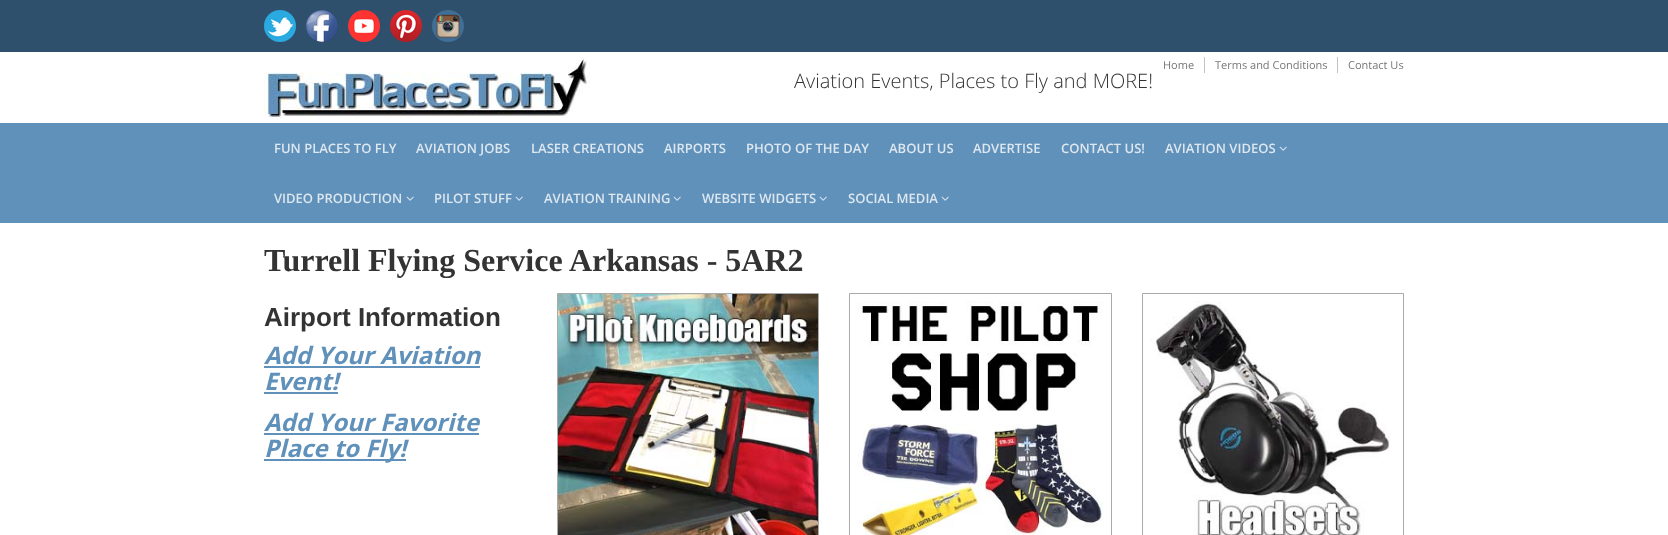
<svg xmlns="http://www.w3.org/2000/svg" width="1668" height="535">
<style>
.a{font:11px Open Sans;fill:#777}
.b{font:300 20px Open Sans;fill:#333}
.c{font:600 13px Open Sans;fill:#dce7f0}
.d{font:bold 32px Liberation Serif;fill:#333}
.e{font:bold 26px Liberation Sans;fill:#333}
.f{font:italic bold 24px Open Sans;fill:#6091ba}
</style>
<rect width="100%" height="100%" fill="#fff"/>
<path fill="#2f506c" d="M0 0h1668v52H0z"/>
<image href="1.png" x="264" y="10" width="32" height="32"/>
<image href="2.png" x="306" y="10" width="32" height="32"/>
<image href="3.png" x="348" y="10" width="32" height="32"/>
<image href="4.png" x="390" y="10" width="32" height="32"/>
<image href="5.png" x="432" y="10" width="32" height="32"/>
<image href="6.png" x="264" y="57" width="326" height="61"/>
<path fill="#c3c3c3" d="M1204 57h1v16H1204z"/>
<path fill="#c3c3c3" d="M1337 57h1v16H1337z"/>
<path fill="#6091ba" d="M0 123h1668v100H0z"/>
<image href="7.png" x="1279" y="146" width="8" height="5"/>
<image href="7.png" x="406" y="196" width="8" height="5"/>
<image href="7.png" x="515" y="196" width="8" height="5"/>
<image href="7.png" x="673" y="196" width="8" height="5"/>
<image href="7.png" x="819" y="196" width="8" height="5"/>
<image href="7.png" x="941" y="196" width="8" height="5"/>
<path fill="#6091ba" d="M264 366h216v2H264z"/>
<path fill="#6091ba" d="M264 392h74v2H264z"/>
<path fill="#6091ba" d="M264 433h215v2H264z"/>
<path fill="#6091ba" d="M264 459h142v2H264z"/>
<path fill="none" stroke="#aaa" d="M557.5 293.5h261v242H557.5z"/>
<image href="8.png" x="558" y="294" width="260" height="241"/>
<path fill="none" stroke="#aaa" d="M849.5 293.5h262v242H849.5z"/>
<image href="9.png" x="857" y="301" width="246" height="234"/>
<path fill="none" stroke="#aaa" d="M1142.5 293.5h261v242H1142.5z"/>
<image href="10.png" x="1151" y="301" width="240" height="234"/>
<text class="a" x="1163" y="69">Home</text>
<text class="a" x="1215" y="69">Terms and Conditions</text>
<text class="a" x="1348" y="69">Contact Us</text>
<text class="b" x="794" y="88">Aviation Events, Places to Fly and MORE!</text>
<text class="c" x="274" y="153">FUN PLACES TO FLY</text>
<text class="c" x="416" y="153">AVIATION JOBS</text>
<text class="c" x="531" y="153">LASER CREATIONS</text>
<text class="c" x="664" y="153">AIRPORTS</text>
<text class="c" x="746" y="153">PHOTO OF THE DAY</text>
<text class="c" x="889" y="153">ABOUT US</text>
<text class="c" x="973" y="153">ADVERTISE</text>
<text class="c" x="1061" y="153">CONTACT US!</text>
<text class="c" x="1165" y="153">AVIATION VIDEOS</text>
<text class="c" x="274" y="203">VIDEO PRODUCTION</text>
<text class="c" x="434" y="203">PILOT STUFF</text>
<text class="c" x="544" y="203">AVIATION TRAINING</text>
<text class="c" x="702" y="203">WEBSITE WIDGETS</text>
<text class="c" x="848" y="203">SOCIAL MEDIA</text>
<text class="d" x="264" y="271">Turrell Flying Service Arkansas - 5AR2</text>
<text class="e" x="264" y="326">Airport Information</text>
<text class="f" x="264" y="364">Add Your Aviation</text>
<text class="f" x="264" y="390">Event!</text>
<text class="f" x="264" y="431">Add Your Favorite</text>
<text class="f" x="264" y="457">Place to Fly!</text>
</svg>
